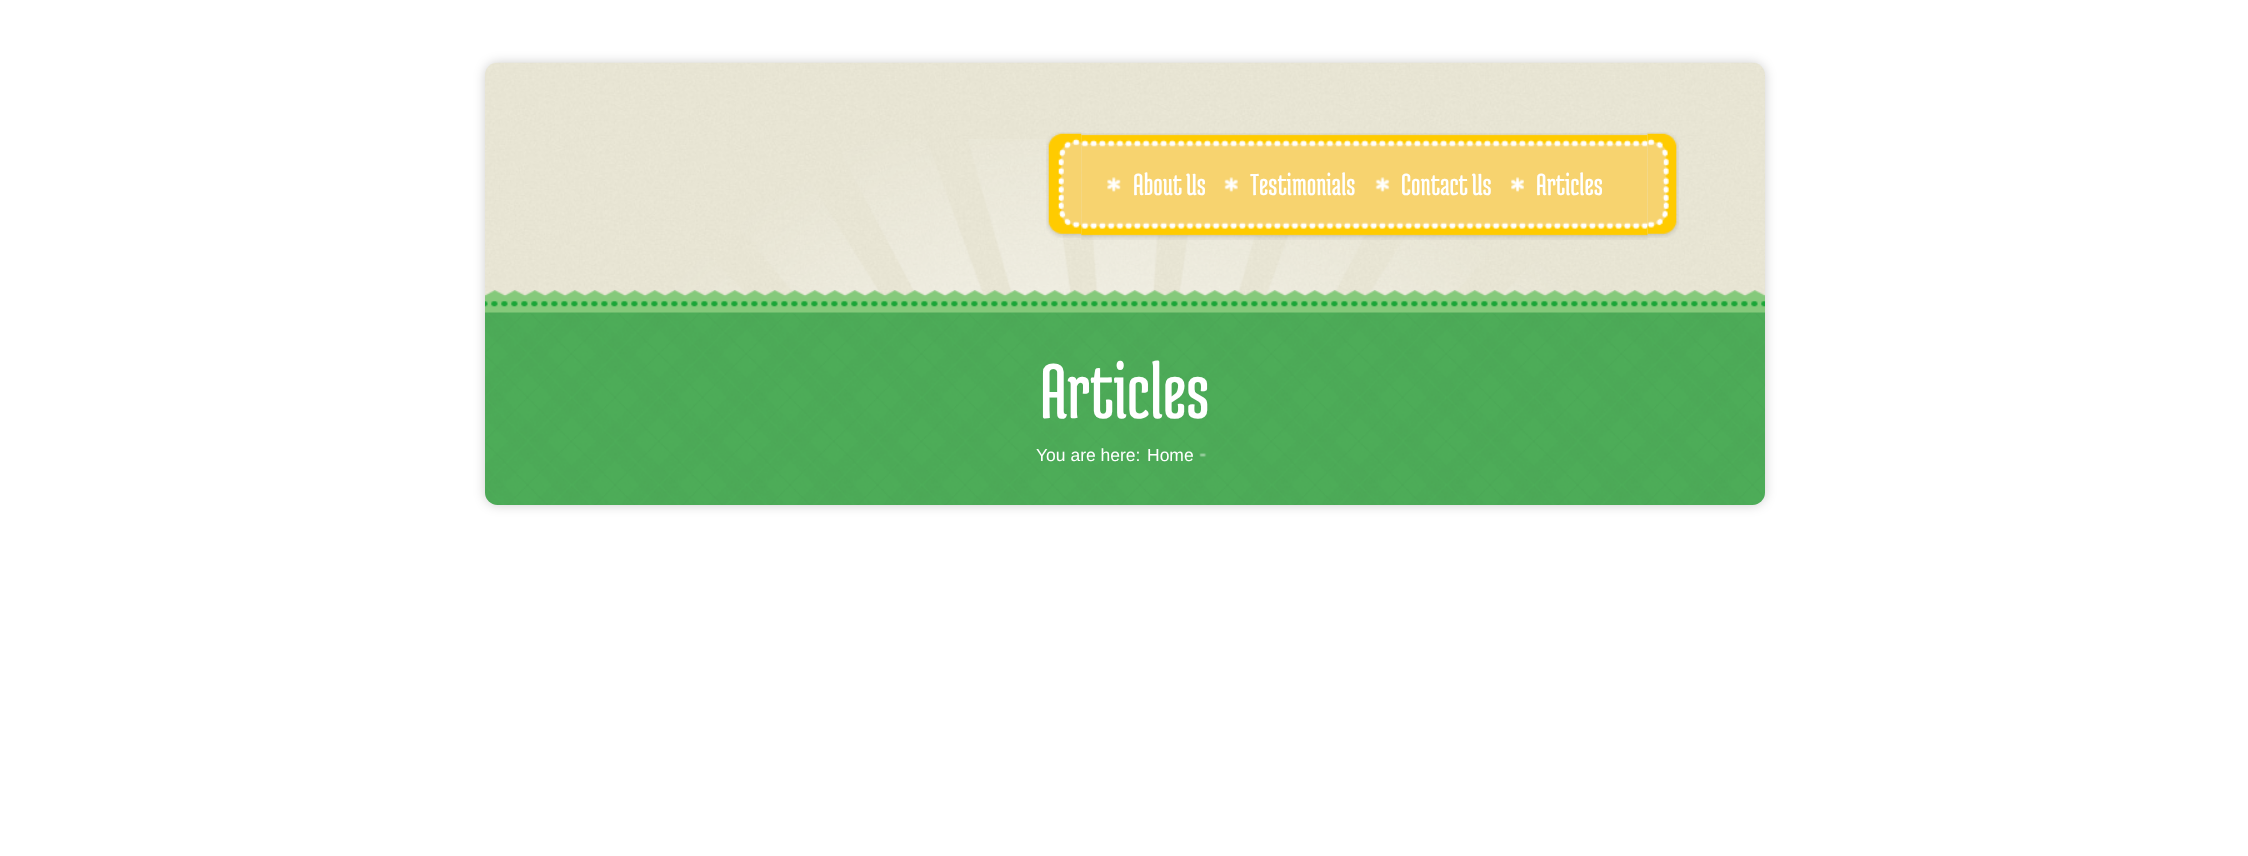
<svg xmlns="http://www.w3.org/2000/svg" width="2248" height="856">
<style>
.a{font:32.5px Medula One;fill:#fff}
.b{font:82.5px Medula One;fill:#fff}
.c{font:17.5px Liberation Sans;fill:#fff}
</style>
<rect width="100%" height="100%" fill="#fff"/>
<rect fill="#00000033" filter="blur(6px)" x="485" y="63" width="1280" height="442" rx="13"/>
<image href="1.png" x="485" y="62" width="1280" height="235"/>
<image href="2.png" x="665" y="139" width="904" height="158"/>
<image href="3.png" x="1046" y="132" width="36" height="106"/>
<image href="4.png" x="1081" y="133" width="567" height="107"/>
<image href="5.png" x="1107" y="177" width="14" height="16"/>
<image href="6.png" x="1224" y="177" width="14" height="16"/>
<image href="7.png" x="1375" y="177" width="15" height="16"/>
<image href="8.png" x="1511" y="177" width="13" height="16"/>
<image href="9.png" x="1647" y="132" width="32" height="106"/>
<image href="11.png" x="485" y="312" width="1280" height="193"/>
<image href="10.png" x="485" y="290" width="1280" height="23"/>
<image href="12.png" x="1199" y="453" width="8" height="4"/>
<text class="a" x="1133" y="195">About Us</text>
<text class="a" x="1250" y="195">Testimonials</text>
<text class="a" x="1401" y="195">Contact Us</text>
<text class="a" x="1536" y="195">Articles</text>
<text class="b" x="1040" y="418">Articles</text>
<text class="c" x="1036" y="461">You are here:</text>
<text class="c" x="1147" y="461">Home</text>
</svg>
